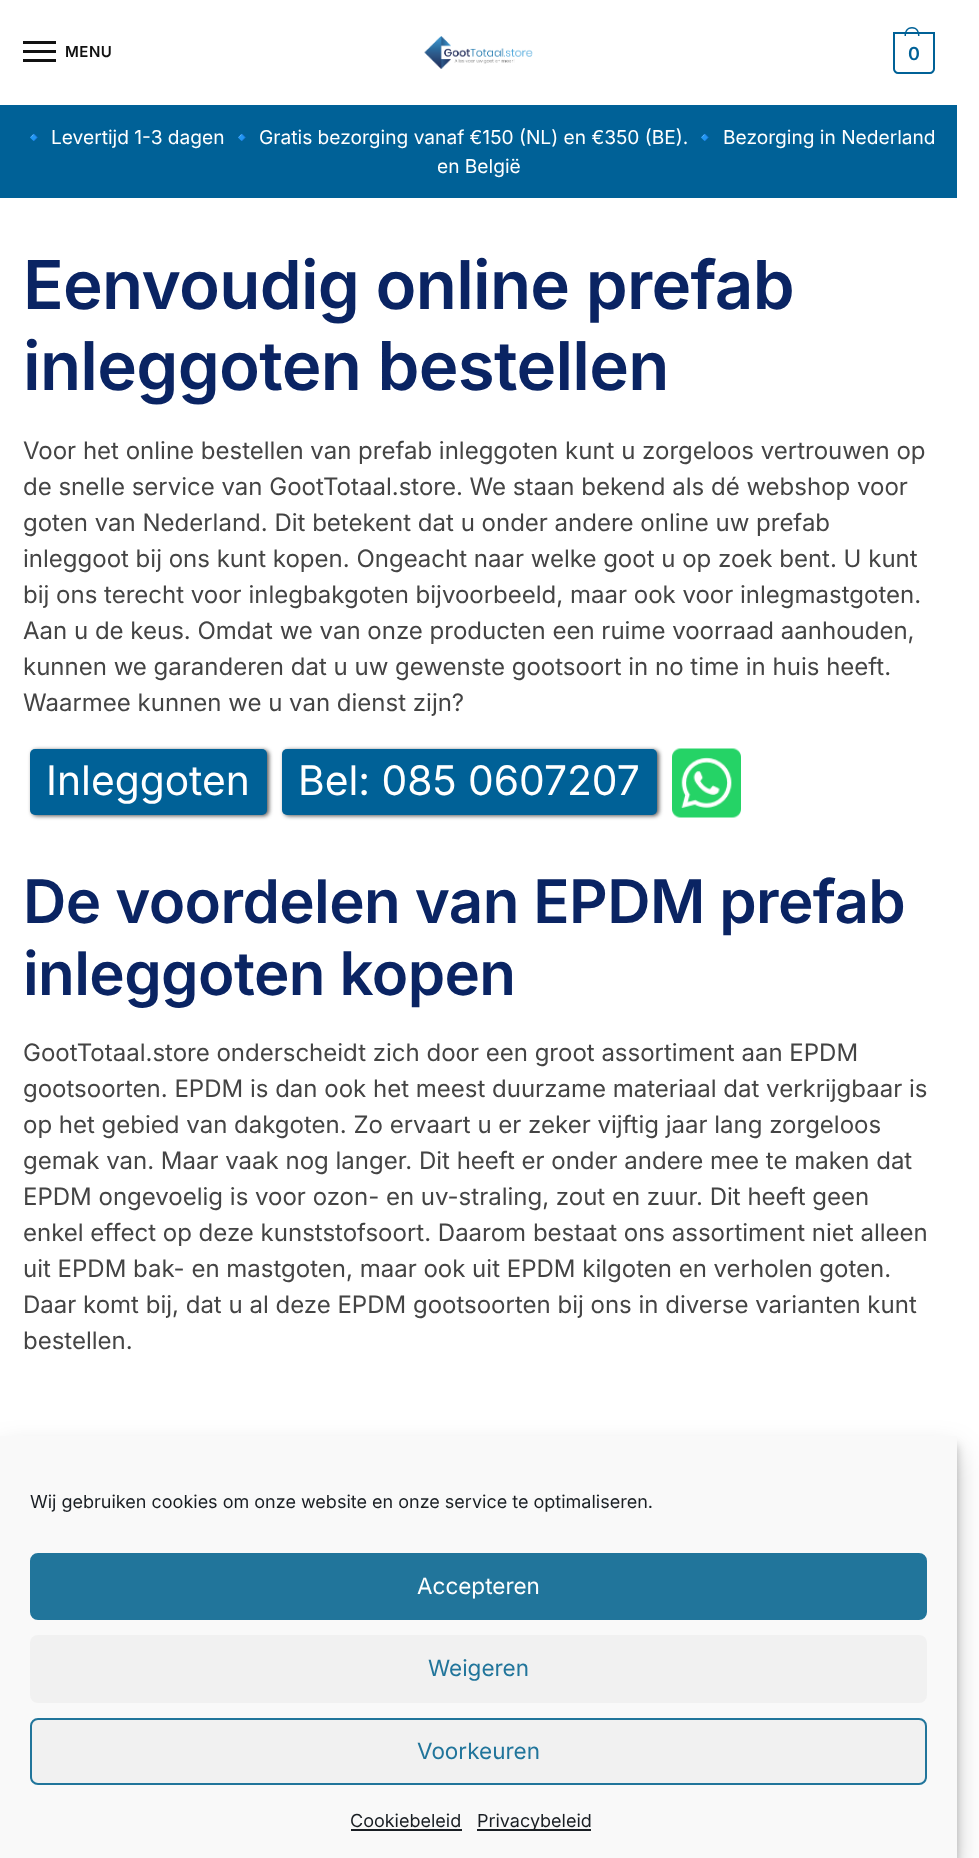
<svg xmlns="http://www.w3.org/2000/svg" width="979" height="1858">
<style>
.a{font:600 15px Inter;letter-spacing:0.5px;fill:#111}
.b{font:600 18px Inter;letter-spacing:-1px;fill:#006197}
.c{font:19.15px Noto Color Emoji;fill:#fff}
.d{font:19.15px Inter;fill:#fff}
.e{font:600 67.25px Inter;letter-spacing:-0.7px;fill:#0a2463}
.f{font:24px Inter;fill:#444}
.g{font:40.75px Inter;fill:#fff}
.h{font:600 60px Inter;letter-spacing:-0.6px;fill:#0a2463}
.i{font:18px Inter;fill:#191e23}
.j{font:22.5px Inter;fill:#fff}
.k{font:22.5px Inter;fill:#21759b}
</style>
<rect width="100%" height="100%" fill="#fff"/>
<path fill="#111" d="M23 41h33v3H23z"/>
<path fill="#111" d="M23 50h33v3H23z"/>
<path fill="#111" d="M23 59h33v3H23z"/>
<image href="1.png" x="424" y="36" width="109" height="33"/>
<path fill="none" stroke="#006197" stroke-width="2" d="M894 33h40v36c0 2-2 4-4 4h-32c-2 0-4-2-4-4z"/>
<path fill="#006197" fill-rule="evenodd" d="M912 27c5.5 0 7.5 4.5 7.5 9h-15c0-4.5 2-9 7.5-9zm0 1.5c4.5 0 6 3.5 6 7.5h-12c0-4 1.5-7.5 6-7.5z"/>
<path fill="#006197" d="M0 105h957v93H0z"/>
<rect fill="#555" filter="blur(2px)" x="32" y="750" width="237" height="66" rx="5"/>
<rect fill="#006197" x="30" y="749" width="237" height="66" rx="5"/>
<rect fill="#555" filter="blur(2px)" x="284" y="750" width="375" height="66" rx="5"/>
<rect fill="#006197" x="282" y="749" width="375" height="66" rx="5"/>
<image href="2.png" x="672" y="748" width="69" height="70"/>
<path fill="#0000003b" filter="blur(4.5px)" d="M0 1445h957v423H0z"/>
<path fill="#00000030" filter="blur(15px)" d="M0 1451h957v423H0z"/>
<path fill="#f9f9f9" d="M0 1436h957v422H0z"/>
<rect fill="#21759b" stroke="#21759b" stroke-width="2" x="31" y="1554" width="895" height="65" rx="7"/>
<rect fill="#f1f1f1" x="30" y="1635" width="897" height="68" rx="8"/>
<rect fill="#f1f1f1" stroke="#21759b" stroke-width="2" x="31" y="1719" width="895" height="65" rx="7"/>
<path fill="#191e23" d="M351 1829h111v2H351z"/>
<path fill="#191e23" d="M477 1829h114v2H477z"/>
<text class="a" x="65" y="57">MENU</text>
<text class="b" x="908" y="60">0</text>
<text class="c" x="22" y="144">🔹</text>
<text class="d" x="51" y="144">Levertijd 1-3 dagen</text>
<text class="c" x="230" y="144">🔹</text>
<text class="d" x="259" y="144">Gratis bezorging vanaf €150 (NL) en €350 (BE).</text>
<text class="c" x="693" y="144">🔹</text>
<text class="d" x="723" y="144">Bezorging in Nederland</text>
<text class="d" x="437" y="173">en België</text>
<text class="e" x="23" y="309">Eenvoudig online prefab</text>
<text class="e" x="23" y="390">inleggoten bestellen</text>
<text class="f" x="23" y="459">Voor het online bestellen van prefab inleggoten kunt u zorgeloos vertrouwen op</text>
<text class="f" x="23" y="495">de snelle service van GootTotaal.store. We staan bekend als dé webshop voor</text>
<text class="f" x="23" y="531">goten van Nederland. Dit betekent dat u onder andere online uw prefab</text>
<text class="f" x="23" y="567">inleggoot bij ons kunt kopen. Ongeacht naar welke goot u op zoek bent. U kunt</text>
<text class="f" x="23" y="603">bij ons terecht voor inlegbakgoten bijvoorbeeld, maar ook voor inlegmastgoten.</text>
<text class="f" x="23" y="639">Aan u de keus. Omdat we van onze producten een ruime voorraad aanhouden,</text>
<text class="f" x="23" y="675">kunnen we garanderen dat u uw gewenste gootsoort in no time in huis heeft.</text>
<text class="f" x="23" y="711">Waarmee kunnen we u van dienst zijn?</text>
<text class="g" x="46" y="795">Inleggoten</text>
<text class="g" x="298" y="795">Bel: 085 0607207</text>
<text class="h" x="23" y="923">De voordelen van EPDM prefab</text>
<text class="h" x="23" y="995">inleggoten kopen</text>
<text class="f" x="23" y="1061">GootTotaal.store onderscheidt zich door een groot assortiment aan EPDM</text>
<text class="f" x="23" y="1097">gootsoorten. EPDM is dan ook het meest duurzame materiaal dat verkrijgbaar is</text>
<text class="f" x="23" y="1133">op het gebied van dakgoten. Zo ervaart u er zeker vijftig jaar lang zorgeloos</text>
<text class="f" x="23" y="1169">gemak van. Maar vaak nog langer. Dit heeft er onder andere mee te maken dat</text>
<text class="f" x="23" y="1205">EPDM ongevoelig is voor ozon- en uv-straling, zout en zuur. Dit heeft geen</text>
<text class="f" x="23" y="1241">enkel effect op deze kunststofsoort. Daarom bestaat ons assortiment niet alleen</text>
<text class="f" x="23" y="1277">uit EPDM bak- en mastgoten, maar ook uit EPDM kilgoten en verholen goten.</text>
<text class="f" x="23" y="1313">Daar komt bij, dat u al deze EPDM gootsoorten bij ons in diverse varianten kunt</text>
<text class="f" x="23" y="1349">bestellen.</text>
<text class="i" x="30" y="1508">Wij gebruiken cookies om onze website en onze service te optimaliseren.</text>
<text class="j" x="417" y="1594">Accepteren</text>
<text class="k" x="428" y="1676">Weigeren</text>
<text class="k" x="417" y="1759">Voorkeuren</text>
<text class="i" x="350" y="1827">Cookiebeleid</text>
<text class="i" x="477" y="1827">Privacybeleid</text>
</svg>
